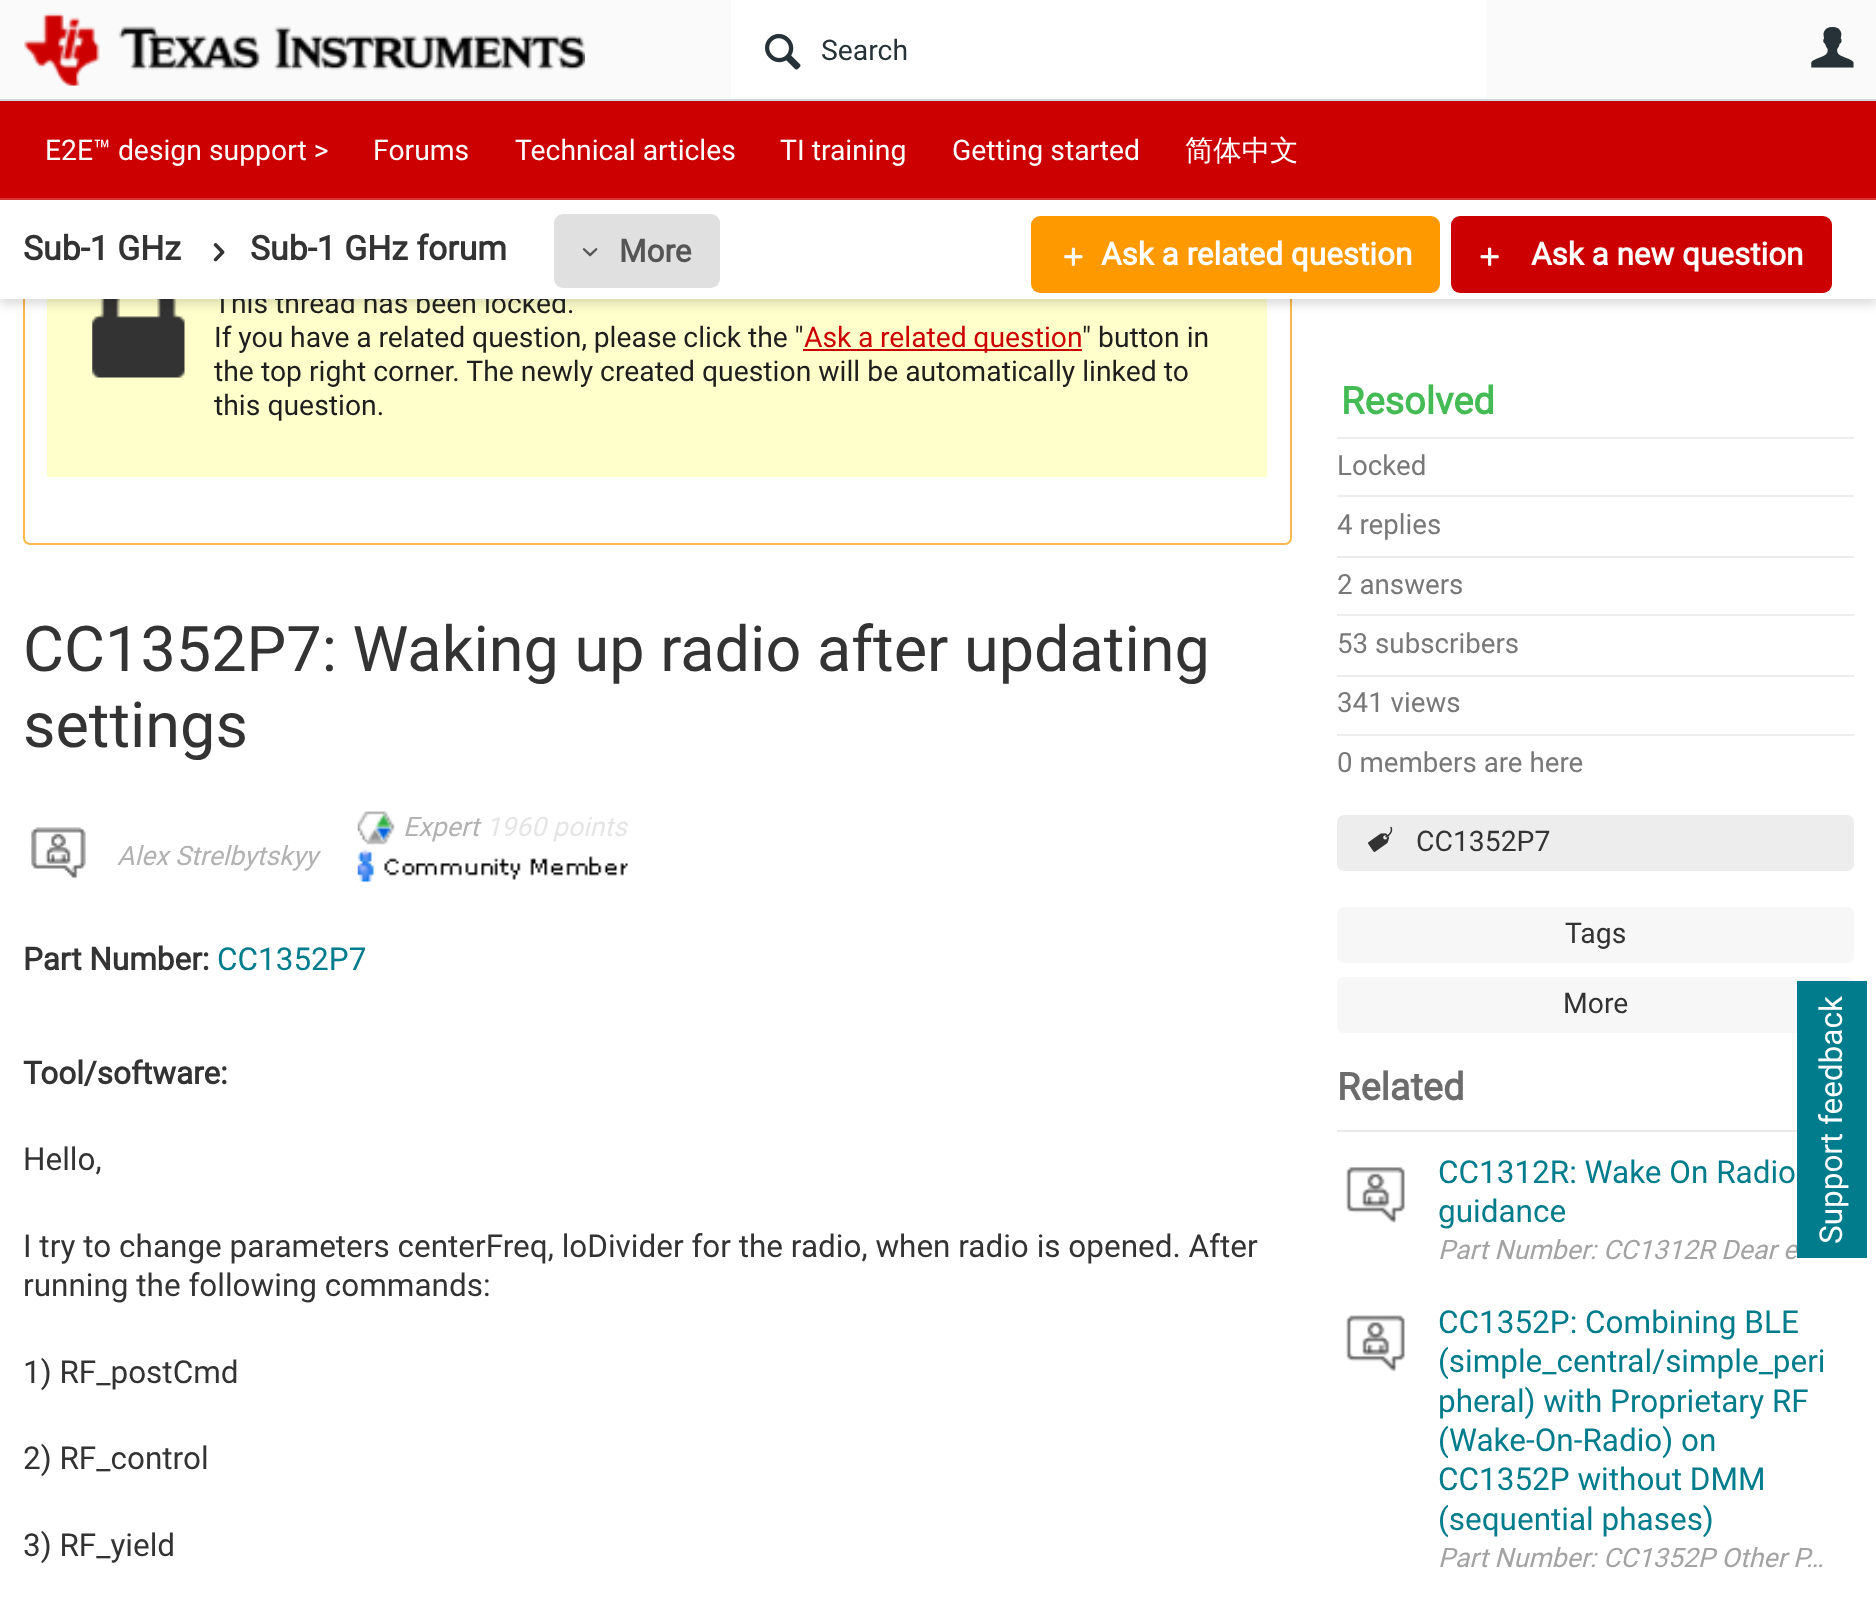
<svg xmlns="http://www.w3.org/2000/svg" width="1876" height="1603">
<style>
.a{font:28.35px Roboto;fill:#263238}
.b{font:28.35px Roboto;fill:#fff}
.c{font:500 28.35px WenQuanYi Zen Hei;fill:#fff}
.d{font:28.35px Roboto;fill:#1e1e1e}
.e{font:bold 31.5px Roboto;fill:#fff}
.f{font:bold 31.5px Roboto;fill:#555}
.g{font:bold 33.75px Roboto;fill:#333}
.h{font:28.35px Roboto;fill:#c00}
.i{font:63px Roboto;fill:#333}
.j{font:italic 26.75px Roboto;fill:#b2b2b2}
.k{font:italic 26.75px Roboto;fill:#e5e5e5}
.l{font:bold 31.5px Roboto;fill:#333}
.m{font:31.5px Roboto;fill:#007c8c}
.n{font:31.5px Roboto;fill:#333}
.o{font:bold 38px Roboto;fill:#4b5}
.p{font:27.75px Roboto;fill:#787878}
.q{font:28.35px Roboto;fill:#333}
.r{font:bold 38px Roboto;fill:#6c6c6c}
.s{font:italic 26.75px Roboto;fill:#a3a3a3}
.t{font:31.5px Roboto;fill:#fff}
</style>
<rect width="100%" height="100%" fill="#fff"/>
<rect fill="none" stroke="#fab94d" stroke-width="2" x="24" y="199" width="1267" height="345" rx="6"/>
<path fill="#ffc" d="M47 299h1220v178H47z"/>
<image href="8.png" x="92" y="299" width="93" height="79"/>
<path fill="#00000026" filter="blur(5.5px)" d="M0 5h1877v299H0z"/>
<path fill="#fafafa" d="M0 0h1876v99H0z"/>
<path fill="#cfd8dc" d="M0 99h1876v2H0z"/>
<image href="1.png" x="24" y="13" width="561" height="73"/>
<path fill="#fff" d="M731 0h756v99H731z"/>
<image href="2.png" x="765" y="33" width="36" height="37"/>
<image href="3.png" x="1811" y="27" width="43" height="41"/>
<path fill="#c00" d="M0 101h1876v97H0z"/>
<path fill="#d63333" d="M0 198h1876v2H0z"/>
<path fill="#c00" d="M803 349h279v2H803z"/>
<image href="9.png" x="31" y="827" width="55" height="52"/>
<image href="10.png" x="31" y="827" width="55" height="52"/>
<image href="11.png" x="357" y="811" width="38" height="34"/>
<image href="12.png" x="357" y="849" width="271" height="34"/>
<path fill="#ededed" d="M1337 437h517v2H1337z"/>
<path fill="#ededed" d="M1337 495h517v2H1337z"/>
<path fill="#ededed" d="M1337 556h517v2H1337z"/>
<path fill="#ededed" d="M1337 614h517v2H1337z"/>
<path fill="#ededed" d="M1337 675h517v2H1337z"/>
<path fill="#ededed" d="M1337 734h517v2H1337z"/>
<rect fill="#ededed" x="1337" y="815" width="517" height="56" rx="7"/>
<image href="13.png" x="1368" y="826" width="25" height="26"/>
<rect fill="#f7f7f7" x="1337" y="907" width="517" height="56" rx="7"/>
<rect fill="#f7f7f7" x="1337" y="977" width="517" height="56" rx="7"/>
<path fill="#e9e9e9" d="M1337 1130h460v2H1337z"/>
<image href="14.png" x="1346" y="1167" width="59" height="56"/>
<image href="15.png" x="1346" y="1167" width="59" height="56"/>
<image href="16.png" x="1346" y="1315" width="59" height="57"/>
<image href="17.png" x="1346" y="1315" width="59" height="56"/>
<text class="a" x="821" y="60">Search</text>
<text class="b" x="45" y="160">E2E™ design support &gt;</text>
<text class="b" x="373" y="160">Forums</text>
<text class="b" x="515" y="160">Technical articles</text>
<text class="b" x="780" y="160">TI training</text>
<text class="b" x="952" y="160">Getting started</text>
<text class="c" x="1185" y="160">简体中文</text>
<text class="d" x="214" y="313">This thread has been locked.</text>
<path fill="#fff" d="M0 200h1876v99H0z"/>
<rect fill="#c00" x="1451" y="216" width="381" height="77" rx="9"/>
<image href="7.png" x="1480" y="247" width="19" height="19"/>
<text class="e" x="1531" y="265">Ask a new question</text>
<rect fill="#f90" x="1031" y="216" width="409" height="77" rx="9"/>
<image href="6.png" x="1064" y="247" width="19" height="19"/>
<text class="e" x="1101" y="265">Ask a related question</text>
<rect fill="#e0e0e0" x="554" y="214" width="166" height="74" rx="9"/>
<image href="5.png" x="582" y="248" width="16" height="9"/>
<text class="f" x="619" y="262">More</text>
<image href="4.png" x="213" y="243" width="12" height="19"/>
<text class="g" x="250" y="260">Sub-1 GHz forum</text>
<text class="g" x="23" y="260">Sub-1 GHz</text>
<text class="d" x="214" y="347" word-spacing="-0.25">If you have a related question, please click the "</text>
<text class="h" x="804" y="347" word-spacing="-0.5">Ask a related question</text>
<text class="d" x="1082" y="347">" button in</text>
<text class="d" x="214" y="381">the top right corner. The newly created question will be automatically linked to</text>
<text class="d" x="214" y="415">this question.</text>
<text class="i" x="23" y="671">CC1352P7: Waking up radio after updating</text>
<text class="i" x="23" y="747">settings</text>
<text class="j" x="117" y="865">Alex Strelbytskyy</text>
<text class="j" x="403" y="836">Expert</text>
<text class="k" x="486" y="836">1960 points</text>
<text class="l" x="23" y="970">Part Number:</text>
<text class="m" x="217" y="970">CC1352P7</text>
<text class="l" x="23" y="1084">Tool/software:</text>
<text class="n" x="23" y="1170">Hello,</text>
<text class="n" x="23" y="1257">I try to change parameters centerFreq, loDivider for the radio, when radio is opened. After</text>
<text class="n" x="23" y="1296">running the following commands:</text>
<text class="n" x="23" y="1383">1) RF_postCmd</text>
<text class="n" x="23" y="1469">2) RF_control</text>
<text class="n" x="23" y="1556">3) RF_yield</text>
<text class="o" x="1341" y="414">Resolved</text>
<text class="p" x="1337" y="475">Locked</text>
<text class="p" x="1337" y="534">4 replies</text>
<text class="p" x="1337" y="594">2 answers</text>
<text class="p" x="1337" y="653">53 subscribers</text>
<text class="p" x="1337" y="712">341 views</text>
<text class="p" x="1337" y="772">0 members are here</text>
<text class="q" x="1416" y="851">CC1352P7</text>
<text class="q" x="1565" y="943">Tags</text>
<text class="q" x="1563" y="1013">More</text>
<text class="r" x="1337" y="1100">Related</text>
<text class="m" x="1438" y="1183">CC1312R: Wake On Radio</text>
<text class="m" x="1438" y="1222">guidance</text>
<text class="s" x="1438" y="1259">Part Number: CC1312R Dear e</text>
<path fill="#007c8c" d="M1797 981h70v277H1797z"/>
<text class="t" x="1842" y="1244" transform="rotate(-90 1842 1244)">Support feedback</text>
<text class="m" x="1438" y="1333">CC1352P: Combining BLE</text>
<text class="m" x="1438" y="1372">(simple_central/simple_peri</text>
<text class="m" x="1438" y="1412">pheral) with Proprietary RF</text>
<text class="m" x="1438" y="1451">(Wake-On-Radio) on</text>
<text class="m" x="1438" y="1490">CC1352P without DMM</text>
<text class="m" x="1438" y="1530">(sequential phases)</text>
<text class="s" x="1438" y="1567">Part Number: CC1352P Other P…</text>
</svg>
